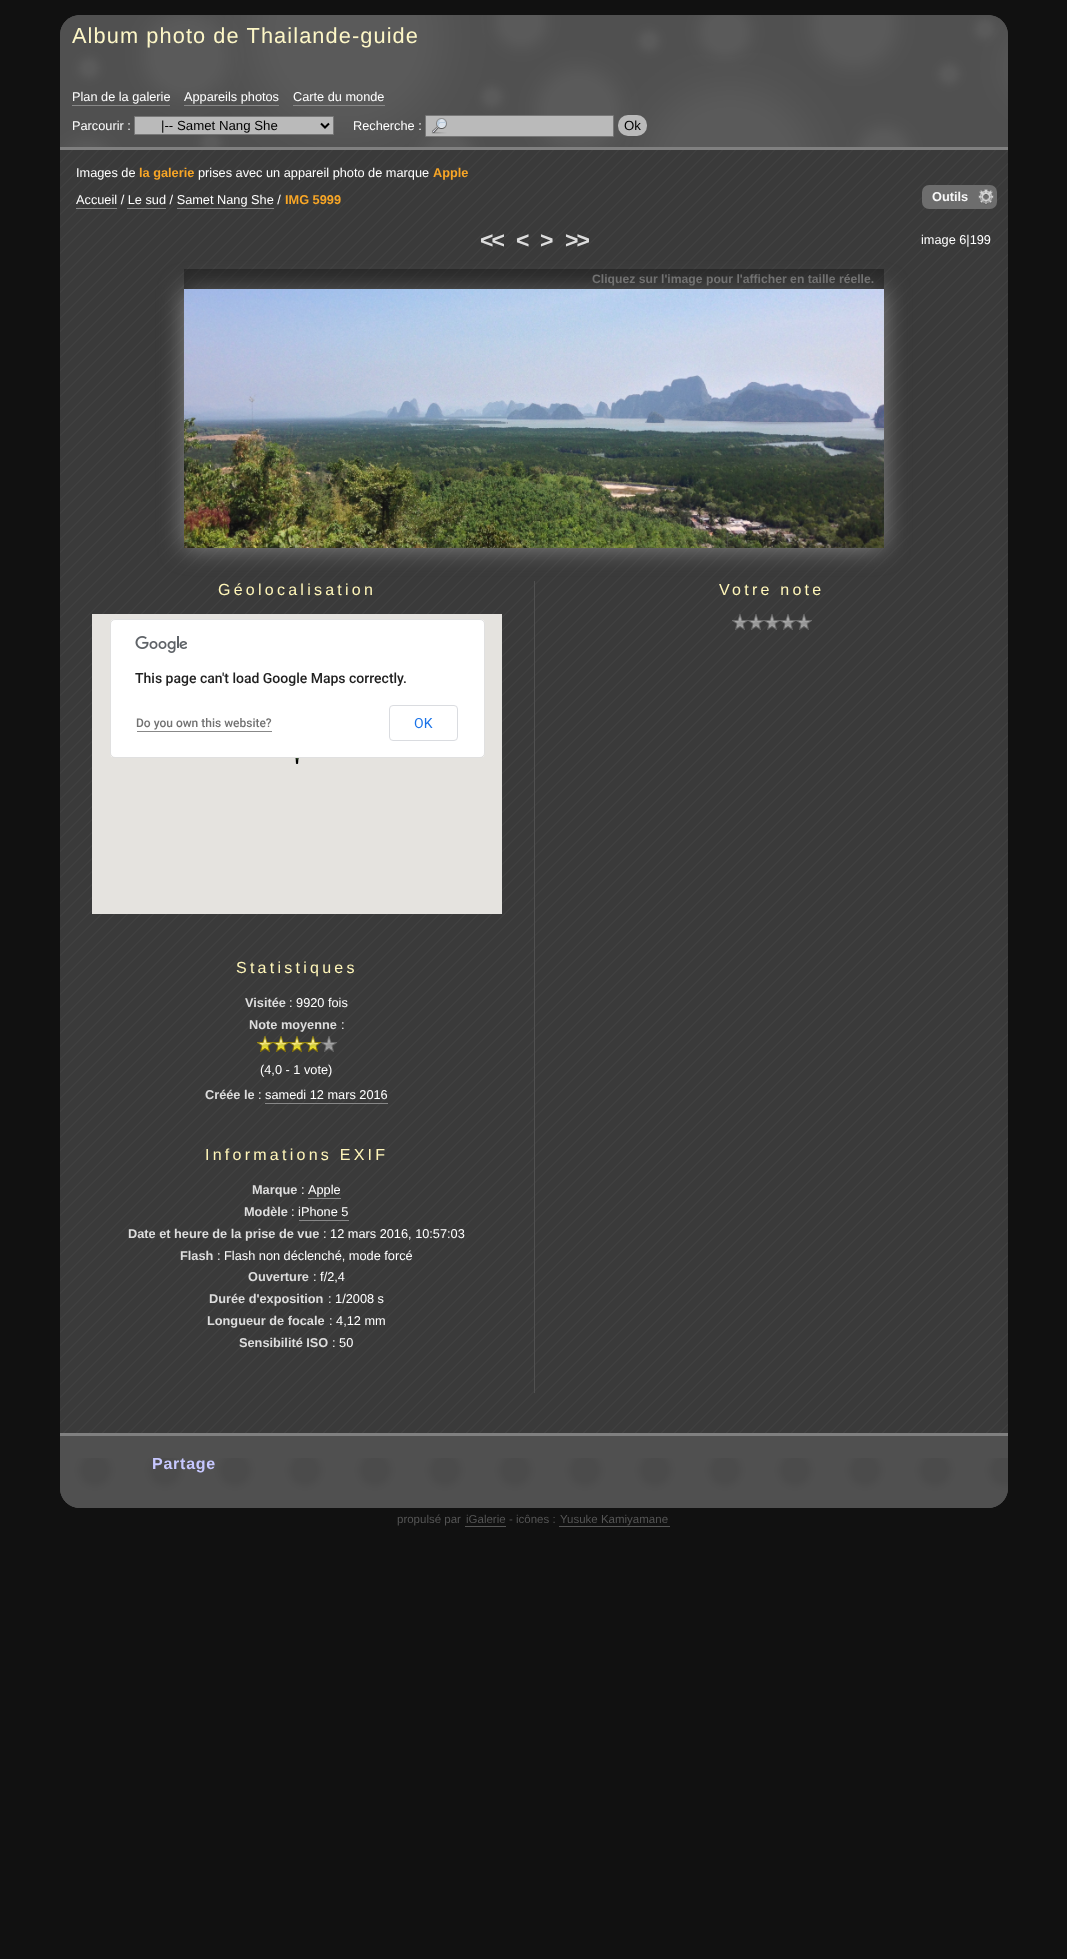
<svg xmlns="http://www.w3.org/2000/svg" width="1067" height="1959">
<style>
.a{font:21.75px Liberation Sans;letter-spacing:1.1px;fill:#fdf7c7}
.b{font:12.75px Liberation Sans;fill:#fff}
.c{font:13.25px Liberation Sans;fill:#000}
.d{font:bold 12.75px Liberation Sans;fill:#f8a626}
.e{font:bold 12.75px Liberation Sans;fill:#f8f8f8}
.f{font:bold 23px Liberation Sans;letter-spacing:-2px;fill:#ddd}
.g{font:bold 12.2px Liberation Sans;fill:#727272}
.h{font:16px Liberation Sans;letter-spacing:3.25px;fill:#fff6b9}
.i{font:500 14px Roboto;fill:#212121}
.j{font:500 12px Roboto;fill:#727272}
.k{font:14px Roboto;fill:#1a73e8}
.l{font:bold 12.75px Liberation Sans;fill:#ddd}
.m{font:bold 16px Liberation Sans;letter-spacing:0.75px;fill:#c7c8ff}
.n{font:11.5px Liberation Sans;fill:#555}
</style>
<rect width="100%" height="100%" fill="#111"/>
<path fill="#505050" d="M80 15h908c11 0 20 9 20 20v115h-948v-115c0-11 9-20 20-20z"/>
<image href="1.png" x="60" y="15" width="948" height="132"/>
<path fill="#808080" d="M60 147h948v3H60z"/>
<path fill="#888" d="M72 105h98v1H72z"/>
<path fill="#888" d="M184 105h95v1H184z"/>
<path fill="#888" d="M293 105h92v1H293z"/>
<path fill="#bababa" stroke="#777" d="M134.5 116.5h199v18H134.5z"/>
<path fill="none" stroke="#000" stroke-width="2" d="M321 123.5l4 4l4-4"/>
<path fill="#bababa" d="M426 116h187v20H426z"/>
<image href="2.png" x="431" y="118" width="16" height="16"/>
<path fill="none" stroke="#777" d="M425.5 115.5h188v21H425.5z"/>
<rect fill="#bababa" x="618" y="115" width="29" height="21" rx="10"/>
<path fill="#3a3a3a" d="M60 150h948v1338c0 11-9 20-20 20h-908c-11 0-20-9-20-20z"/>
<image href="3.png" x="60" y="150" width="948" height="1358"/>
<path fill="#888" d="M76 208h41v1H76z"/>
<path fill="#888" d="M127 208h39v1H127z"/>
<path fill="#888" d="M177 208h97v1H177z"/>
<rect fill="#707070f2" x="922" y="185" width="75" height="24" rx="7"/>
<image href="4.png" x="978" y="189" width="16" height="16"/>
<path fill="#505050" d="M534 581h1v812H534z"/>
<path fill="#888" filter="blur(12.5px)" d="M184 289h700v259H184z"/>
<image href="5.png" x="184" y="289" width="700" height="259"/>
<path fill="#0000004d" d="M184 269h700v20H184z"/>
<path fill="#e5e3df" d="M92 614h410v300H92z"/>
<image href="6.png" x="295" y="758" width="4" height="6"/>
<rect fill="#fff" x="110" y="619" width="375" height="139" rx="5"/>
<rect fill="none" stroke="#0000001f" x="110.5" y="619.5" width="374" height="138" rx="4.5"/>
<image href="7.png" x="135" y="636" width="52" height="17"/>
<path fill="#888" d="M137 731h135v1H137z"/>
<rect fill="none" stroke="#dadce0" x="389.5" y="705.5" width="68" height="35" rx="3.5"/>
<image href="8.png" x="257" y="1036" width="16" height="16"/>
<image href="9.png" x="273" y="1036" width="16" height="16"/>
<image href="10.png" x="289" y="1036" width="16" height="16"/>
<image href="11.png" x="305" y="1036" width="16" height="16"/>
<image href="12.png" x="321" y="1036" width="16" height="16"/>
<path fill="#888" d="M265 1103h123v1H265z"/>
<path fill="#888" d="M308 1198h33v1H308z"/>
<path fill="#888" d="M299 1220h50v1H299z"/>
<image href="13.png" x="732" y="614" width="16" height="16"/>
<image href="14.png" x="748" y="614" width="16" height="16"/>
<image href="15.png" x="764" y="614" width="16" height="16"/>
<image href="16.png" x="780" y="614" width="16" height="16"/>
<image href="17.png" x="796" y="614" width="16" height="16"/>
<path fill="#505050" d="M60 1433h948v55c0 11-9 20-20 20h-908c-11 0-20-9-20-20z"/>
<image href="18.png" x="60" y="1458" width="948" height="50"/>
<path fill="#808080" d="M60 1433h948v3H60z"/>
<path fill="#555" d="M465 1526h41v1H465z"/>
<path fill="#555" d="M559 1526h111v1H559z"/>
<text class="a" x="72" y="43">Album photo de Thailande-guide</text>
<text class="b" x="72" y="101">Plan de la galerie</text>
<text class="b" x="184" y="101">Appareils photos</text>
<text class="b" x="293" y="101">Carte du monde</text>
<text class="b" x="72" y="130">Parcourir :</text>
<text class="c" x="161" y="130">|-- Samet Nang She</text>
<text class="b" x="353" y="130">Recherche :</text>
<text class="c" x="624" y="130">Ok</text>
<text class="b" x="76" y="177">Images de</text>
<text class="d" x="139" y="177">la galerie</text>
<text class="b" x="198" y="177">prises avec un appareil photo de marque</text>
<text class="d" x="433" y="177">Apple</text>
<text class="b" x="76" y="204">Accueil / Le sud / Samet Nang She /</text>
<text class="d" x="285" y="204">IMG 5999</text>
<text class="e" x="932" y="201">Outils</text>
<text class="f" x="480" y="248">&lt;&lt;</text>
<text class="f" x="516" y="248">&lt;</text>
<text class="f" x="540" y="248">&gt;</text>
<text class="f" x="565" y="248">&gt;&gt;</text>
<text class="b" x="921" y="244">image 6|199</text>
<text class="g" x="592" y="283">Cliquez sur l'image pour l'afficher en taille réelle.</text>
<text class="h" x="218" y="595">Géolocalisation</text>
<text class="i" x="135" y="683">This page can't load Google Maps correctly.</text>
<text class="j" x="136" y="727">Do you own this website?</text>
<text class="k" x="414" y="728">OK</text>
<text class="h" x="236" y="973">Statistiques</text>
<text class="l" x="245" y="1007">Visitée</text>
<text class="b" x="289" y="1007">: 9920 fois</text>
<text class="l" x="249" y="1029">Note moyenne</text>
<text class="b" x="341" y="1029">:</text>
<text class="b" x="260" y="1074">(4,0 - 1 vote)</text>
<text class="l" x="205" y="1099">Créée le</text>
<text class="b" x="258" y="1099">: samedi 12 mars 2016</text>
<text class="h" x="205" y="1160">Informations EXIF</text>
<text class="l" x="252" y="1194">Marque</text>
<text class="b" x="301" y="1194">:</text>
<text class="b" x="308" y="1194">Apple</text>
<text class="l" x="244" y="1216">Modèle</text>
<text class="b" x="291" y="1216">: iPhone 5</text>
<text class="l" x="128" y="1238">Date et heure de la prise de vue</text>
<text class="b" x="323" y="1238">: 12 mars 2016, 10:57:03</text>
<text class="l" x="180" y="1260">Flash</text>
<text class="b" x="217" y="1260">: Flash non déclenché, mode forcé</text>
<text class="l" x="248" y="1281">Ouverture</text>
<text class="b" x="313" y="1281">: f/2,4</text>
<text class="l" x="209" y="1303">Durée d'exposition</text>
<text class="b" x="328" y="1303">: 1/2008 s</text>
<text class="l" x="207" y="1325">Longueur de focale</text>
<text class="b" x="329" y="1325">: 4,12 mm</text>
<text class="l" x="239" y="1347">Sensibilité ISO</text>
<text class="b" x="332" y="1347">: 50</text>
<text class="h" x="719" y="595">Votre note</text>
<text class="m" x="152" y="1469">Partage</text>
<text class="n" x="397" y="1523">propulsé par</text>
<text class="n" x="466" y="1523">iGalerie</text>
<text class="n" x="509" y="1523">- icônes :</text>
<text class="n" x="560" y="1523">Yusuke Kamiyamane</text>
</svg>
